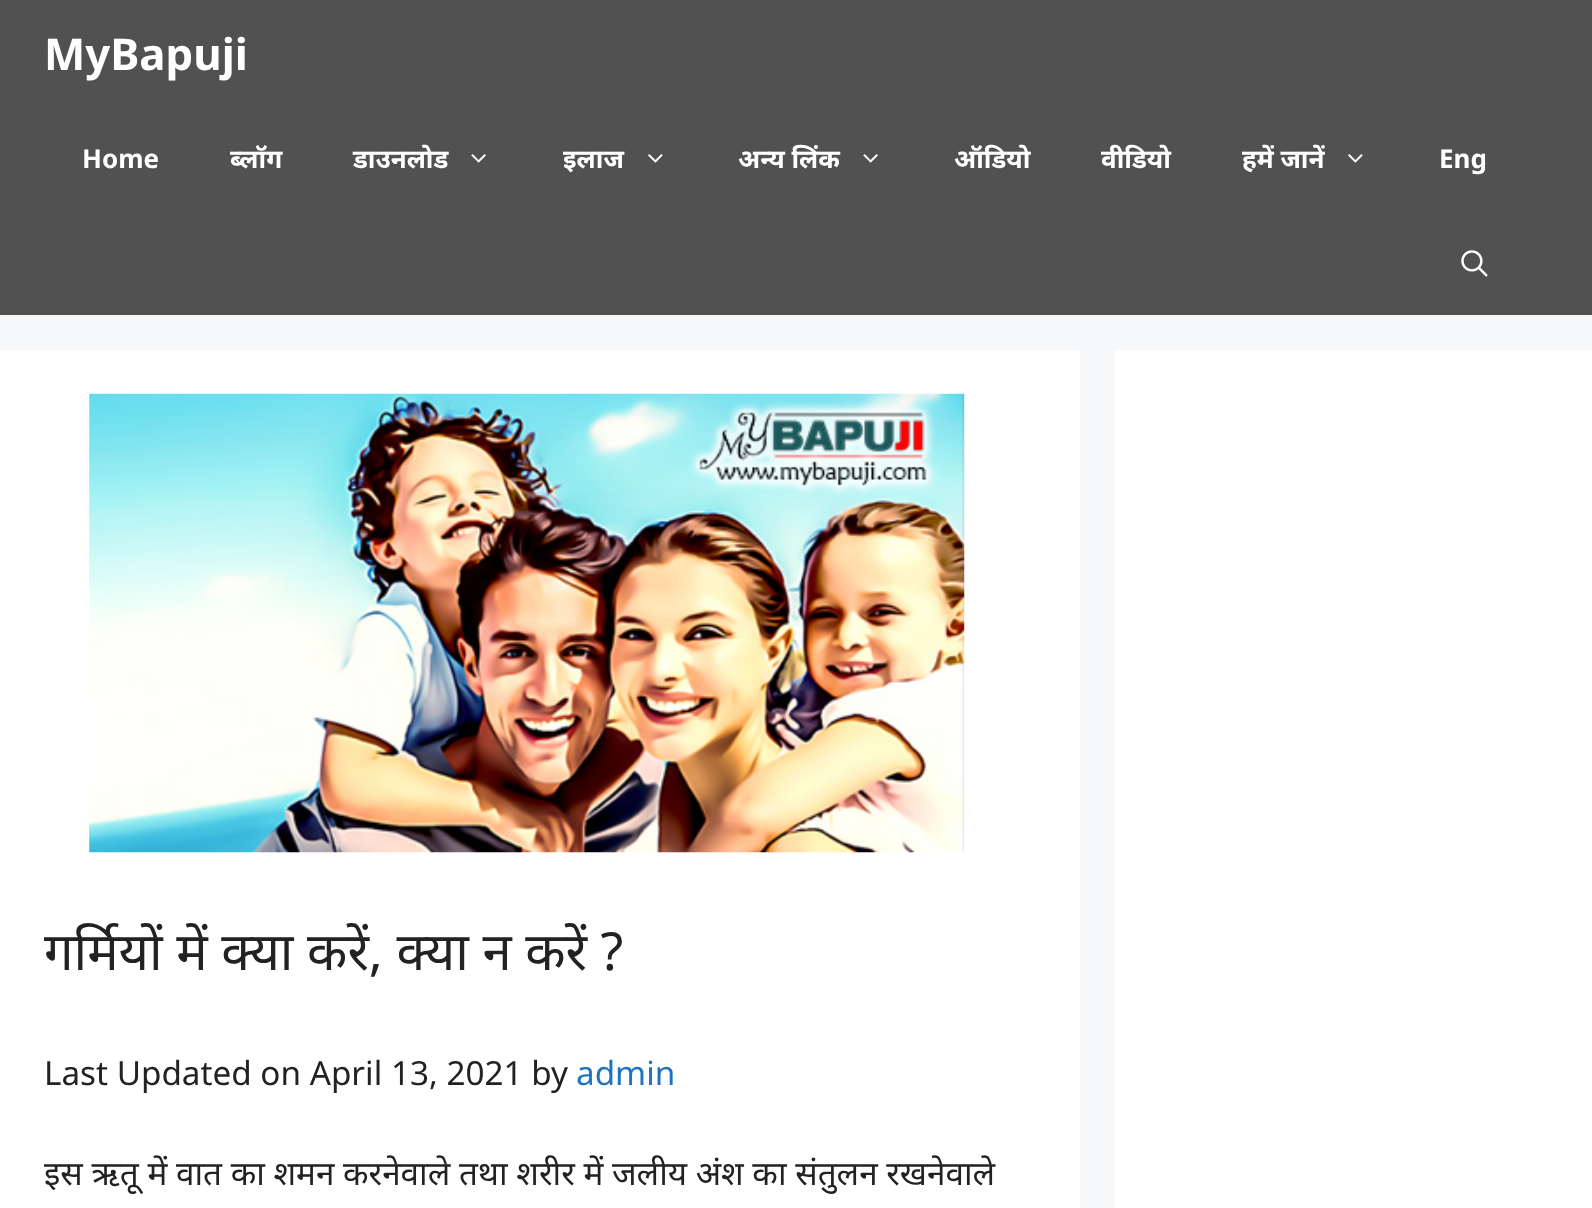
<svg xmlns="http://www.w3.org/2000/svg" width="1592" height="1208">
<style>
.a{font:bold 43.75px Noto Sans;fill:#fff}
.b{font:bold 26px Noto Sans;fill:#fff}
.c{font:52.5px Noto Sans;fill:#222}
.d{font:33.25px Noto Sans;fill:#222}
.e{font:33.25px Noto Sans;fill:#1e73be}
</style>
<rect width="100%" height="100%" fill="#f7f8f9"/>
<path fill="#515151" d="M0 0h1592v315H0z"/>
<image href="1.png" x="471" y="154" width="15" height="9"/>
<image href="2.png" x="648" y="154" width="15" height="9"/>
<image href="1.png" x="863" y="154" width="15" height="9"/>
<image href="2.png" x="1348" y="154" width="15" height="9"/>
<image href="3.png" x="1461" y="250" width="27" height="27"/>
<path fill="#fff" d="M0 350h1080v858H0z"/>
<image href="4.png" x="89" y="393" width="876" height="460"/>
<path fill="#fff" d="M1115 350h477v858H1115z"/>
<text class="a" x="44" y="70">MyBapuji</text>
<text class="b" x="82" y="168">Home</text>
<text class="b" x="230" y="168">ब्लॉग</text>
<text class="b" x="353" y="168">डाउनलोड</text>
<text class="b" x="563" y="168">इलाज</text>
<text class="b" x="738" y="168">अन्य लिंक</text>
<text class="b" x="954" y="168">ऑडियो</text>
<text class="b" x="1101" y="168">वीडियो</text>
<text class="b" x="1242" y="168">हमें जानें</text>
<text class="b" x="1439" y="168">Eng</text>
<text class="c" x="44" y="970">गर्मियों में क्या करें, क्या न करें ?</text>
<text class="d" x="44" y="1085">Last Updated on April 13, 2021 by</text>
<text class="e" x="576" y="1085">admin</text>
<text class="d" x="44" y="1185">इस ऋतू में वात का शमन करनेवाले तथा शरीर में जलीय अंश का संतुलन रखनेवाले</text>
</svg>
